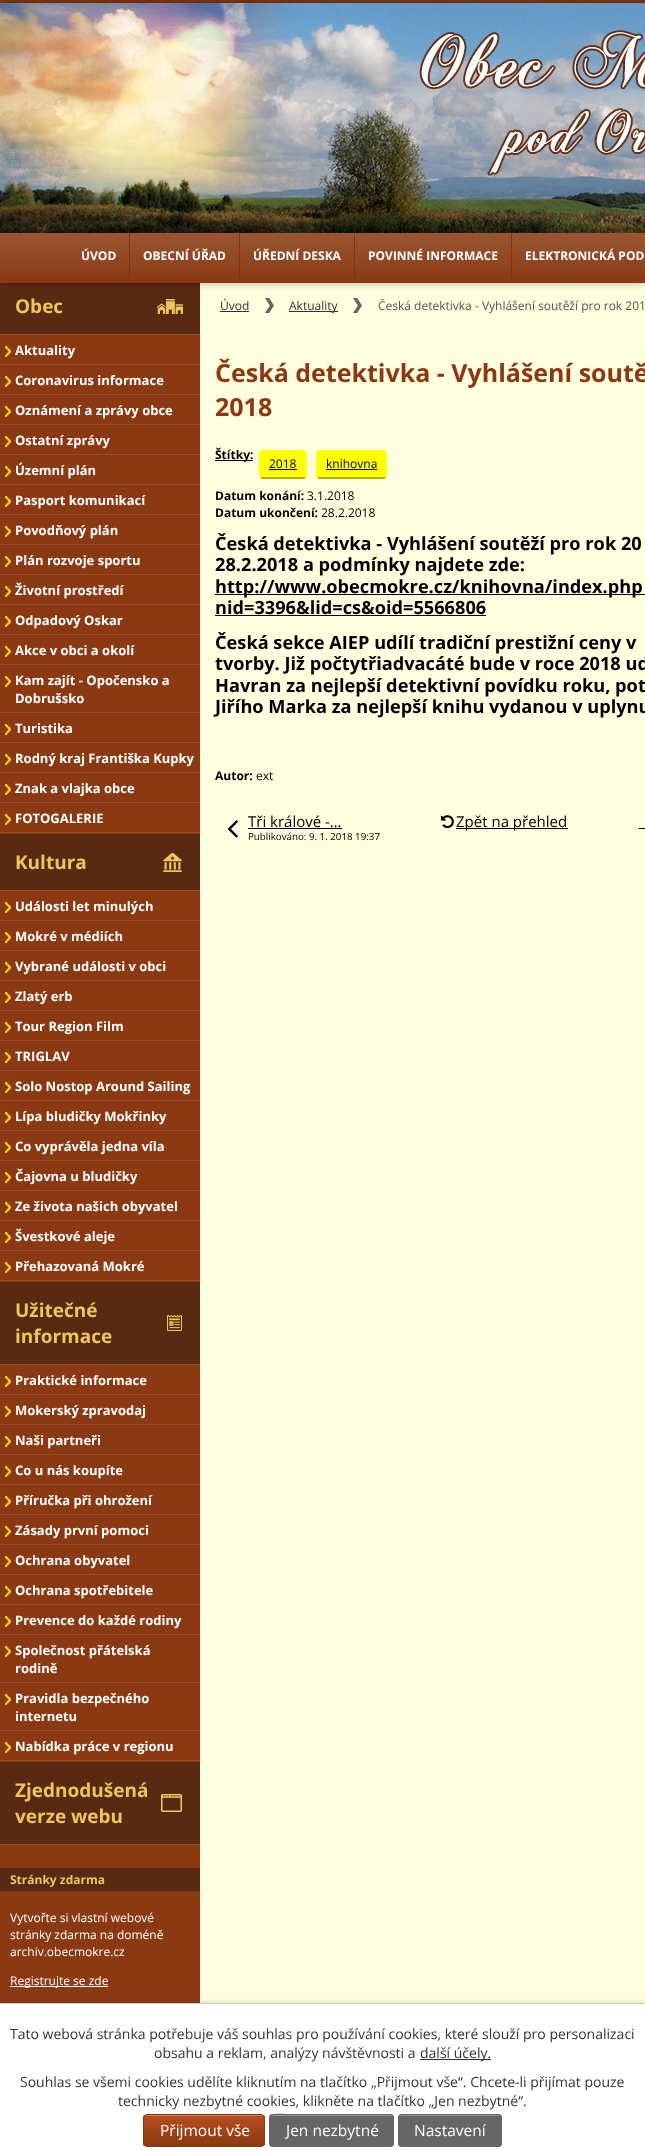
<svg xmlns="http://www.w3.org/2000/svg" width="645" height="2151">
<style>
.a{font:bold 12px Open Sans;fill:#fff}
.b{font:bold 19px Open Sans;fill:#ecc65a}
.c{font:bold 13px Open Sans;fill:#fff}
.d{font:bold 12px Open Sans;fill:#ecc65a}
.e{font:12px Open Sans;fill:#fff}
.f{font:12px Open Sans;fill:#333}
.g{font:12px Open Sans;fill:#555}
.h{font:bold 25px Open Sans;fill:#8b3913}
.i{font:bold 12px Open Sans;fill:#000}
.j{font:12px Open Sans;fill:#000}
.k{font:bold 18.2px Open Sans;fill:#000}
.l{font:15px Open Sans;fill:#000}
.m{font:9.75px Open Sans;fill:#000}
.n{font:14px Open Sans;fill:#333}
.o{font:15.5px Open Sans;fill:#fff}
</style>
<defs>
<linearGradient id="g1" gradientUnits="userSpaceOnUse" x1="323" y1="233" x2="323" y2="283"><stop offset="0" stop-color="#9a5534"/><stop offset="1" stop-color="#8a3912"/></linearGradient>
<clipPath id="clip1"><rect x="143" y="2114" width="122" height="33" rx="4"/></clipPath>
<linearGradient id="g2" gradientUnits="userSpaceOnUse" x1="144" y1="2115" x2="144" y2="2146"><stop offset="0" stop-color="#b84e1e"/><stop offset="1" stop-color="#8a3912"/></linearGradient>
</defs>
<rect width="100%" height="100%" fill="#8a3912"/>
<path fill="#00000080" filter="blur(3.5px)" d="M0 3h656v235H0z"/>
<image href="1.png" x="0" y="3" width="645" height="230"/>
<image href="2.png" x="0" y="283" width="645" height="1720"/>
<path fill="#5a2912" d="M0 283h200v51H0z"/>
<path fill="#0000004d" filter="blur(4px)" d="M0 233h645v50H0z"/>
<path fill="url(#g1)" d="M0 233h645v50H0z"/>
<path fill="#7e3311" d="M129 233h1v46H129z"/>
<path fill="#7e3311" d="M239 233h1v46H239z"/>
<path fill="#7e3311" d="M354 233h1v46H354z"/>
<path fill="#7e3311" d="M511 233h1v46H511z"/>
<path fill="#98502d" d="M0 334h200v1H0z"/>
<image href="3.png" x="157" y="299" width="26" height="15"/>
<path fill="#98502d" d="M0 364h200v1H0z"/>
<image href="4.png" x="5" y="346" width="6" height="11"/>
<path fill="#98502d" d="M0 394h200v1H0z"/>
<image href="4.png" x="5" y="376" width="6" height="11"/>
<path fill="#98502d" d="M0 424h200v1H0z"/>
<image href="4.png" x="5" y="406" width="6" height="11"/>
<path fill="#98502d" d="M0 454h200v1H0z"/>
<image href="4.png" x="5" y="436" width="6" height="11"/>
<path fill="#98502d" d="M0 484h200v1H0z"/>
<image href="4.png" x="5" y="466" width="6" height="11"/>
<path fill="#98502d" d="M0 514h200v1H0z"/>
<image href="4.png" x="5" y="496" width="6" height="11"/>
<path fill="#98502d" d="M0 544h200v1H0z"/>
<image href="4.png" x="5" y="526" width="6" height="11"/>
<path fill="#98502d" d="M0 574h200v1H0z"/>
<image href="4.png" x="5" y="556" width="6" height="11"/>
<path fill="#98502d" d="M0 604h200v1H0z"/>
<image href="4.png" x="5" y="586" width="6" height="11"/>
<path fill="#98502d" d="M0 634h200v1H0z"/>
<image href="4.png" x="5" y="616" width="6" height="11"/>
<path fill="#98502d" d="M0 664h200v1H0z"/>
<image href="4.png" x="5" y="646" width="6" height="11"/>
<path fill="#98502d" d="M0 712h200v1H0z"/>
<image href="4.png" x="5" y="676" width="6" height="11"/>
<path fill="#98502d" d="M0 742h200v1H0z"/>
<image href="4.png" x="5" y="724" width="6" height="11"/>
<path fill="#98502d" d="M0 772h200v1H0z"/>
<image href="4.png" x="5" y="754" width="6" height="11"/>
<path fill="#98502d" d="M0 802h200v1H0z"/>
<image href="4.png" x="5" y="784" width="6" height="11"/>
<path fill="#98502d" d="M0 832h200v1H0z"/>
<image href="4.png" x="5" y="814" width="6" height="11"/>
<path fill="#98502d" d="M0 890h200v1H0z"/>
<path fill="#5a2912" d="M0 834h200v56H0z"/>
<image href="5.png" x="163" y="853" width="19" height="19"/>
<path fill="#98502d" d="M0 920h200v1H0z"/>
<image href="4.png" x="5" y="902" width="6" height="11"/>
<path fill="#98502d" d="M0 950h200v1H0z"/>
<image href="4.png" x="5" y="932" width="6" height="11"/>
<path fill="#98502d" d="M0 980h200v1H0z"/>
<image href="4.png" x="5" y="962" width="6" height="11"/>
<path fill="#98502d" d="M0 1010h200v1H0z"/>
<image href="4.png" x="5" y="992" width="6" height="11"/>
<path fill="#98502d" d="M0 1040h200v1H0z"/>
<image href="4.png" x="5" y="1022" width="6" height="11"/>
<path fill="#98502d" d="M0 1070h200v1H0z"/>
<image href="4.png" x="5" y="1052" width="6" height="11"/>
<path fill="#98502d" d="M0 1100h200v1H0z"/>
<image href="4.png" x="5" y="1082" width="6" height="11"/>
<path fill="#98502d" d="M0 1130h200v1H0z"/>
<image href="4.png" x="5" y="1112" width="6" height="11"/>
<path fill="#98502d" d="M0 1160h200v1H0z"/>
<image href="4.png" x="5" y="1142" width="6" height="11"/>
<path fill="#98502d" d="M0 1190h200v1H0z"/>
<image href="4.png" x="5" y="1172" width="6" height="11"/>
<path fill="#98502d" d="M0 1220h200v1H0z"/>
<image href="4.png" x="5" y="1202" width="6" height="11"/>
<path fill="#98502d" d="M0 1250h200v1H0z"/>
<image href="4.png" x="5" y="1232" width="6" height="11"/>
<path fill="#98502d" d="M0 1280h200v1H0z"/>
<image href="4.png" x="5" y="1262" width="6" height="11"/>
<path fill="#98502d" d="M0 1364h200v1H0z"/>
<path fill="#5a2912" d="M0 1282h200v82H0z"/>
<image href="6.png" x="167" y="1315" width="15" height="16"/>
<path fill="#98502d" d="M0 1394h200v1H0z"/>
<image href="4.png" x="5" y="1376" width="6" height="11"/>
<path fill="#98502d" d="M0 1424h200v1H0z"/>
<image href="4.png" x="5" y="1406" width="6" height="11"/>
<path fill="#98502d" d="M0 1454h200v1H0z"/>
<image href="4.png" x="5" y="1436" width="6" height="11"/>
<path fill="#98502d" d="M0 1484h200v1H0z"/>
<image href="4.png" x="5" y="1466" width="6" height="11"/>
<path fill="#98502d" d="M0 1514h200v1H0z"/>
<image href="4.png" x="5" y="1496" width="6" height="11"/>
<path fill="#98502d" d="M0 1544h200v1H0z"/>
<image href="4.png" x="5" y="1526" width="6" height="11"/>
<path fill="#98502d" d="M0 1574h200v1H0z"/>
<image href="4.png" x="5" y="1556" width="6" height="11"/>
<path fill="#98502d" d="M0 1604h200v1H0z"/>
<image href="4.png" x="5" y="1586" width="6" height="11"/>
<path fill="#98502d" d="M0 1634h200v1H0z"/>
<image href="4.png" x="5" y="1616" width="6" height="11"/>
<path fill="#98502d" d="M0 1682h200v1H0z"/>
<image href="4.png" x="5" y="1646" width="6" height="11"/>
<path fill="#98502d" d="M0 1730h200v1H0z"/>
<image href="4.png" x="5" y="1694" width="6" height="11"/>
<path fill="#98502d" d="M0 1760h200v1H0z"/>
<image href="4.png" x="5" y="1742" width="6" height="11"/>
<path fill="#98502d" d="M0 1844h200v1H0z"/>
<path fill="#5a2912" d="M0 1762h200v82H0z"/>
<image href="7.png" x="161" y="1794" width="21" height="18"/>
<path fill="#5a2912" d="M0 1868h200v23H0z"/>
<path fill="#fff" d="M10 1986h98v1H10z"/>
<path fill="#333" d="M220 311h29v1H220z"/>
<image href="8.png" x="265" y="298" width="9" height="15"/>
<path fill="#333" d="M289 311h49v1H289z"/>
<image href="8.png" x="353" y="298" width="9" height="15"/>
<path fill="#000" d="M215 460h38v1H215z"/>
<rect fill="#ffff05" x="259" y="450" width="48" height="29" rx="4"/>
<path fill="#0000004d" d="M261 477h44v2H261z"/>
<path fill="#000" d="M269 469h28v1H269z"/>
<rect fill="#ffff05" x="316" y="450" width="71" height="29" rx="4"/>
<path fill="#0000004d" d="M318 477h67v2H318z"/>
<path fill="#000" d="M326 469h51v1H326z"/>
<path fill="#000" d="M215 594h430v1H215z"/>
<path fill="#000" d="M215 615h271v1H215z"/>
<image href="9.png" x="227" y="820" width="11" height="18"/>
<path fill="#000" d="M248 828h94v1H248z"/>
<image href="10.png" x="441" y="815" width="13" height="14"/>
<path fill="#000" d="M456 828h112v1H456z"/>
<path fill="#000" d="M639 828h6v1H639z"/>
<path fill="#00000033" filter="blur(2.5px)" d="M0 2003h645v148H0z"/>
<path fill="#fff" d="M0 2004h645v147H0z"/>
<path fill="#ccc" d="M0 2003h645v1H0z"/>
<path fill="#333" d="M420 2059h71v1H420z"/>
<g clip-path="url(#clip1)">
<path fill="url(#g2)" d="M143 2115h122v31H143z"/>
</g>
<path fill="#ffffff4d" d="M147 2116h114c2 0 3 1 3 3c0-2-1-4-3-4h-95c-1 0-22-5-22 4c0-2 1-3 3-3z"/>
<rect fill="none" stroke="#8a3912" x="143.5" y="2114.5" width="121" height="32" rx="3.5"/>
<rect fill="#666" x="269" y="2114" width="125" height="33" rx="4"/>
<path fill="#949494" d="M273 2116h117c2 0 3 1 3 3c0-2-1-4-3-4h-98c0 0-22-5-22 4c0-2 1-3 3-3z"/>
<rect fill="none" stroke="#666" x="269.5" y="2114.5" width="124" height="32" rx="3.5"/>
<rect fill="#666" x="398" y="2114" width="104" height="33" rx="4"/>
<path fill="#949494" d="M402 2116h96c2 0 3 1 3 3c0-8-16-4-19-4h-64c-3 0-19-4-19 4c0-2 1-3 3-3z"/>
<rect fill="none" stroke="#666" x="398.5" y="2114.5" width="103" height="32" rx="3.5"/>
<text class="a" x="81" y="260">ÚVOD</text>
<text class="a" x="143" y="260">OBECNÍ ÚŘAD</text>
<text class="a" x="253" y="260">ÚŘEDNÍ DESKA</text>
<text class="a" x="368" y="260">POVINNÉ INFORMACE</text>
<text class="a" x="525" y="260">ELEKTRONICKÁ POD</text>
<text class="b" x="15" y="313">Obec</text>
<text class="c" x="15" y="355">Aktuality</text>
<text class="c" x="15" y="385">Coronavirus informace</text>
<text class="c" x="15" y="415">Oznámení a zprávy obce</text>
<text class="c" x="15" y="445">Ostatní zprávy</text>
<text class="c" x="15" y="475">Územní plán</text>
<text class="c" x="15" y="505">Pasport komunikací</text>
<text class="c" x="15" y="535">Povodňový plán</text>
<text class="c" x="15" y="565">Plán rozvoje sportu</text>
<text class="c" x="15" y="595">Životní prostředí</text>
<text class="c" x="15" y="625">Odpadový Oskar</text>
<text class="c" x="15" y="655">Akce v obci a okolí</text>
<text class="c" x="15" y="685">Kam zajít - Opočensko a</text>
<text class="c" x="15" y="703">Dobrušsko</text>
<text class="c" x="15" y="733">Turistika</text>
<text class="c" x="15" y="763">Rodný kraj Františka Kupky</text>
<text class="c" x="15" y="793">Znak a vlajka obce</text>
<text class="c" x="15" y="823">FOTOGALERIE</text>
<text class="b" x="15" y="869">Kultura</text>
<text class="c" x="15" y="911">Události let minulých</text>
<text class="c" x="15" y="941">Mokré v médiích</text>
<text class="c" x="15" y="971">Vybrané události v obci</text>
<text class="c" x="15" y="1001">Zlatý erb</text>
<text class="c" x="15" y="1031">Tour Region Film</text>
<text class="c" x="15" y="1061">TRIGLAV</text>
<text class="c" x="15" y="1091">Solo Nostop Around Sailing</text>
<text class="c" x="15" y="1121">Lípa bludičky Mokřinky</text>
<text class="c" x="15" y="1151">Co vyprávěla jedna víla</text>
<text class="c" x="15" y="1181">Čajovna u bludičky</text>
<text class="c" x="15" y="1211">Ze života našich obyvatel</text>
<text class="c" x="15" y="1241">Švestkové aleje</text>
<text class="c" x="15" y="1271">Přehazovaná Mokré</text>
<text class="b" x="15" y="1317">Užitečné</text>
<text class="b" x="15" y="1343">informace</text>
<text class="c" x="15" y="1385">Praktické informace</text>
<text class="c" x="15" y="1415">Mokerský zpravodaj</text>
<text class="c" x="15" y="1445">Naši partneři</text>
<text class="c" x="15" y="1475">Co u nás koupíte</text>
<text class="c" x="15" y="1505">Příručka při ohrožení</text>
<text class="c" x="15" y="1535">Zásady první pomoci</text>
<text class="c" x="15" y="1565">Ochrana obyvatel</text>
<text class="c" x="15" y="1595">Ochrana spotřebitele</text>
<text class="c" x="15" y="1625">Prevence do každé rodiny</text>
<text class="c" x="15" y="1655">Společnost přátelská</text>
<text class="c" x="15" y="1673">rodině</text>
<text class="c" x="15" y="1703">Pravidla bezpečného</text>
<text class="c" x="15" y="1721">internetu</text>
<text class="c" x="15" y="1751">Nabídka práce v regionu</text>
<text class="b" x="15" y="1797">Zjednodušená</text>
<text class="b" x="15" y="1823">verze webu</text>
<text class="d" x="10" y="1884">Stránky zdarma</text>
<text class="e" x="10" y="1922">Vytvořte si vlastní webové</text>
<text class="e" x="10" y="1939">stránky zdarma na doméně</text>
<text class="e" x="10" y="1956">archiv.obecmokre.cz</text>
<text class="e" x="10" y="1985">Registrujte se zde</text>
<text class="f" x="220" y="310">Úvod</text>
<text class="f" x="289" y="310">Aktuality</text>
<text class="g" x="378" y="310">Česká detektivka - Vyhlášení soutěží pro rok 201</text>
<text class="h" x="215" y="382">Česká detektivka - Vyhlášení soutě</text>
<text class="h" x="215" y="416">2018</text>
<text class="i" x="215" y="459">Štítky:</text>
<text class="j" x="269" y="468">2018</text>
<text class="j" x="326" y="468">knihovna</text>
<text class="i" x="215" y="500">Datum konání:</text>
<text class="j" x="307" y="500">3.1.2018</text>
<text class="i" x="215" y="517">Datum ukončení:</text>
<text class="j" x="321" y="517">28.2.2018</text>
<text class="k" x="215" y="550">Česká detektivka - Vyhlášení soutěží pro rok 20</text>
<text class="k" x="215" y="571">28.2.2018 a podmínky najdete zde:</text>
<text class="k" x="215" y="593">http://www.obecmokre.cz/knihovna/index.php</text>
<text class="k" x="215" y="614">nid=3396&amp;lid=cs&amp;oid=5566806</text>
<text class="k" x="215" y="649">Česká sekce AIEP udílí tradiční prestižní ceny v</text>
<text class="k" x="215" y="670">tvorby. Již počtytřiadvacáté bude v roce 2018 ud</text>
<text class="k" x="215" y="692">Havran za nejlepší detektivní povídku roku, pot</text>
<text class="k" x="215" y="713">Jiřího Marka za nejlepší knihu vydanou v uplynu</text>
<text class="i" x="215" y="780">Autor:</text>
<text class="j" x="256" y="780">ext</text>
<text class="l" x="248" y="827">Tři králové -…</text>
<text class="m" x="248" y="840">Publikováno: 9. 1. 2018 19:37</text>
<text class="l" x="456" y="827">Zpět na přehled</text>
<text class="n" x="10" y="2039">Tato webová stránka potřebuje váš souhlas pro používání cookies, které slouží pro personalizaci</text>
<text class="n" x="154" y="2058">obsahu a reklam, analýzy návštěvnosti a</text>
<text class="n" x="420" y="2058">další účely.</text>
<text class="n" x="20" y="2087">Souhlas se všemi cookies udělíte kliknutím na tlačítko „Přijmout vše“. Chcete-li přijímat pouze</text>
<text class="n" x="118" y="2106">technicky nezbytné cookies, klikněte na tlačítko „Jen nezbytné“.</text>
<text class="o" x="160" y="2136">Přijmout vše</text>
<text class="o" x="286" y="2136">Jen nezbytné</text>
<text class="o" x="414" y="2136">Nastavení</text>
</svg>
